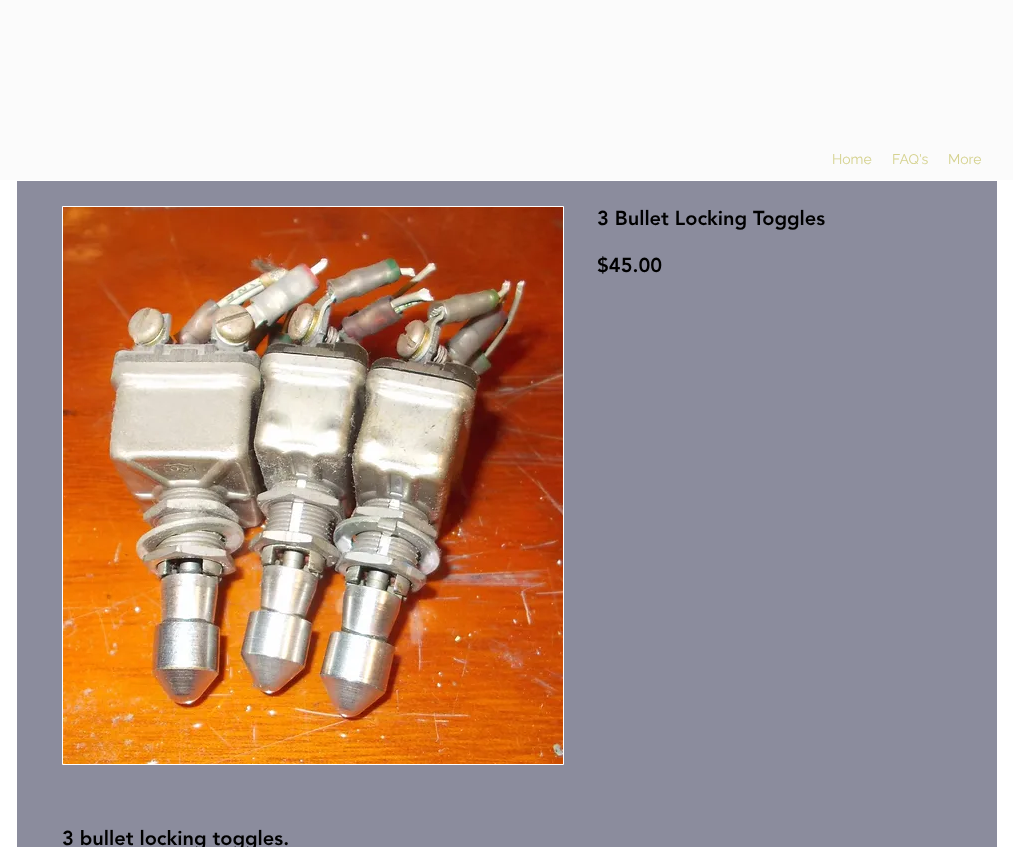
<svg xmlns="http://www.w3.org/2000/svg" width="1013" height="847">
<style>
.a{font:14px Raleway;fill:#d5d28f}
.b{font:900 20px 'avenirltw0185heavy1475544';fill:#000}
</style>
<rect width="100%" height="100%" fill="#fff"/>
<path fill="#fbfbfb" d="M0 0h1013v180H0z"/>
<path fill="#8b8c9d" d="M17 181h980v666H17z"/>
<path fill="none" stroke="#fff" d="M62.5 206.5h501v558H62.5z"/>
<image href="1.png" x="63" y="207" width="500" height="557"/>
<text class="a" x="832" y="164">Home</text>
<text class="a" x="892" y="164">FAQ's</text>
<text class="a" x="948" y="164">More</text>
<text class="b" x="597" y="225">3 Bullet Locking Toggles</text>
<text class="b" x="597" y="272">$45.00</text>
<text class="b" x="62" y="845">3 bullet locking toggles.</text>
</svg>
